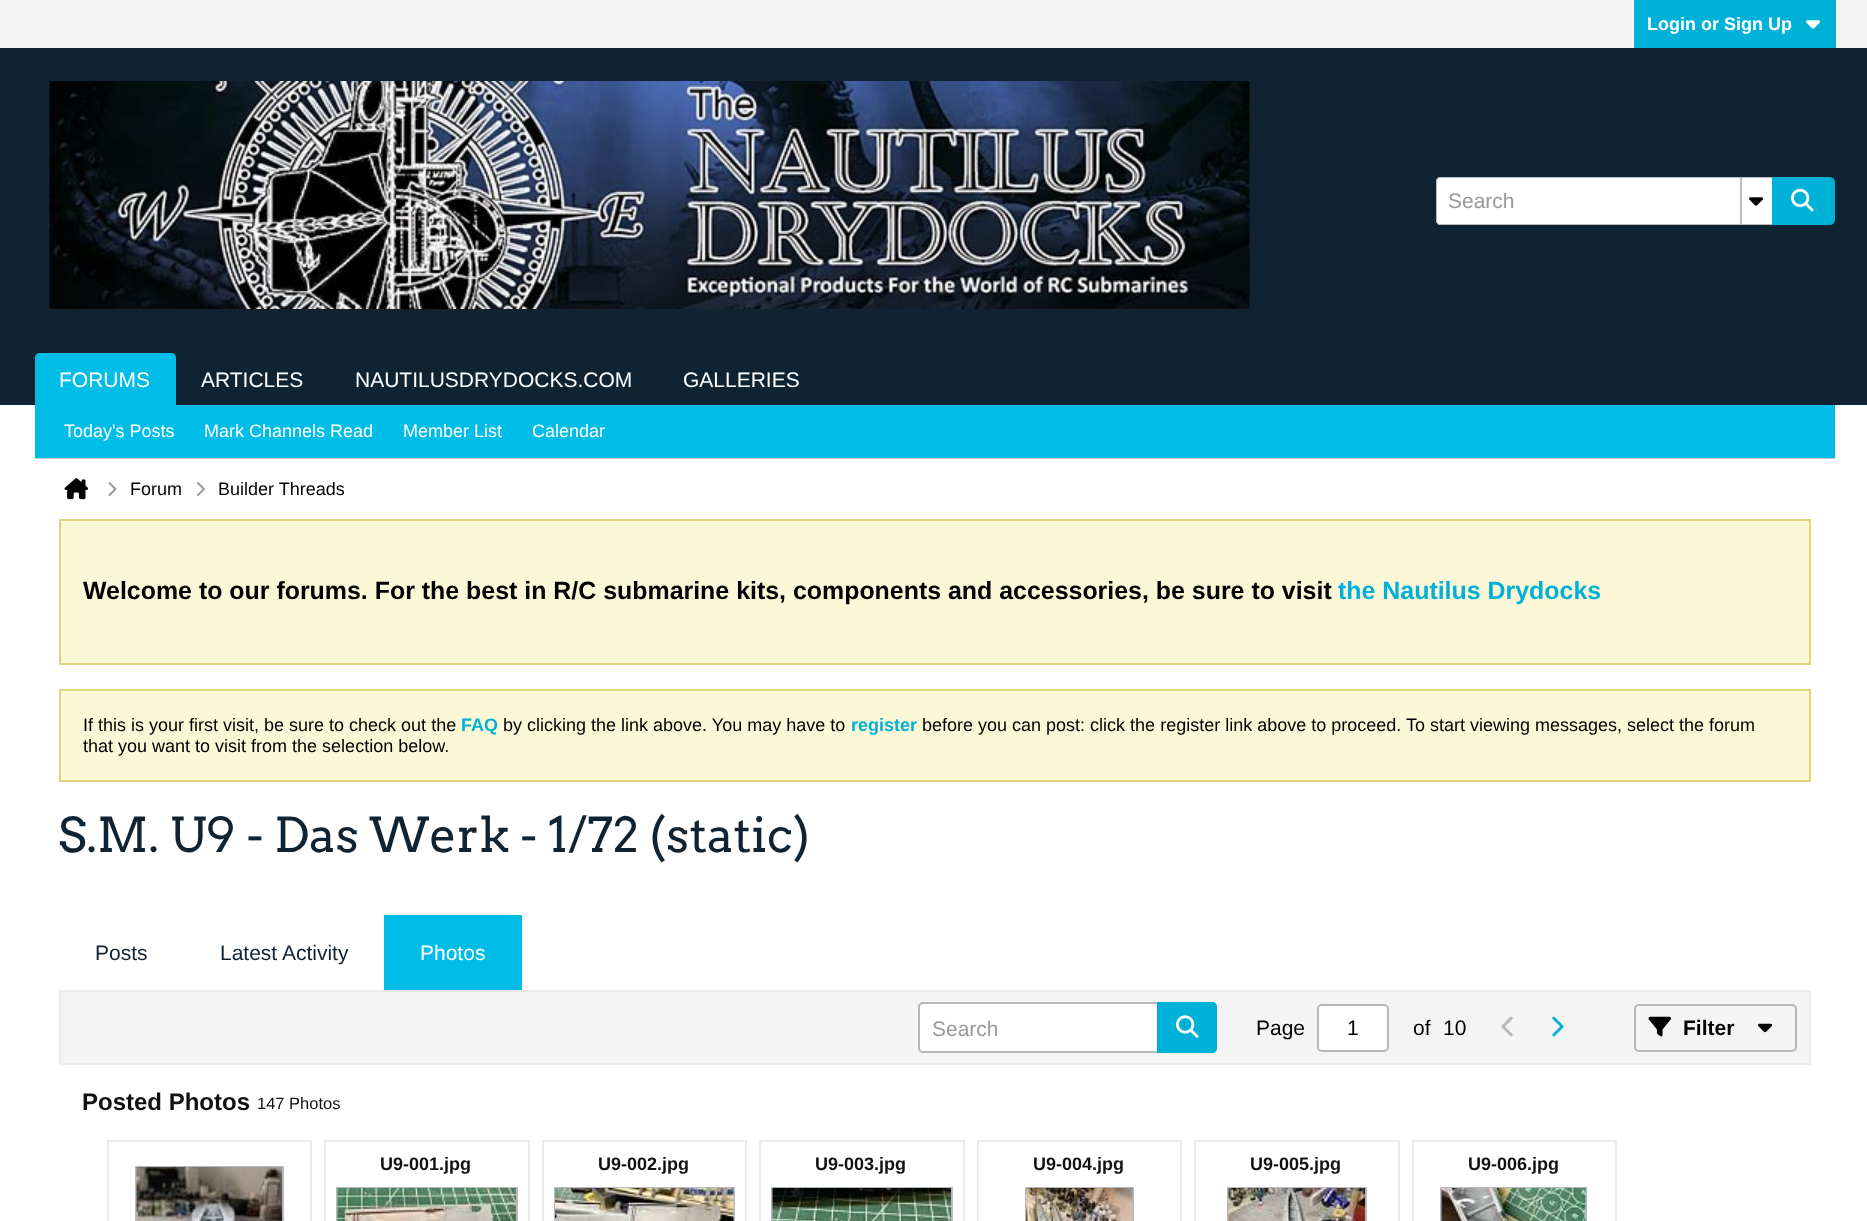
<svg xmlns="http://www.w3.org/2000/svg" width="1867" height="1221">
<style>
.a{font:bold 18px Liberation Sans;fill:#fff}
.b{font:21px Liberation Sans;fill:#999}
.c{font:21px Liberation Sans;fill:#fff}
.d{font:18px Liberation Sans;fill:#fff}
.e{font:18px Liberation Sans;fill:#000}
.f{font:bold 24.93px Liberation Sans;fill:#000}
.g{font:bold 24.93px Liberation Sans;fill:#00b1d7}
.h{font:bold 18px Liberation Sans;fill:#00b1d7}
.i{font:48px Arvo;fill:#0f2332}
.j{font:21px Liberation Sans;fill:#0f2332}
.k{font:21px Liberation Sans;fill:#000}
.l{font:bold 21px Liberation Sans;fill:#000}
.m{font:bold 24px Liberation Sans;fill:#111}
.n{font:16.5px Liberation Sans;fill:#111}
.o{font:bold 18px Liberation Sans;fill:#111}
</style>
<rect width="100%" height="100%" fill="#fff"/>
<path fill="#f5f4f4" d="M0 0h1867v48H0z"/>
<path fill="#00b1d7" d="M1634 0h202v48H1634z"/>
<image href="1.png" x="1806" y="20" width="14" height="9"/>
<path fill="#0f2332" d="M0 48h1867v357H0z"/>
<image href="2.png" x="49" y="81" width="1201" height="228"/>
<path fill="#fff" d="M1441 177h331v48h-331c-3 0-5-2-5-5v-38c0-3 2-5 5-5z"/>
<path fill="#b7b7b7" fill-rule="evenodd" d="M1440 177h332v48h-332c-2 0-4-2-4-5v-38c0-3 2-5 4-5zm0 1h332v46h-332c-2 0-3-2-3-4v-38c0-2 1-4 3-4z"/>
<path fill="#bdbdbd" d="M1740 177h2v48H1740z"/>
<image href="3.png" x="1749" y="197" width="14" height="9"/>
<path fill="#00b1d7" stroke="#00b1d7" stroke-width="2" d="M1773 178h57c2 0 4 2 4 4v38c0 2-2 4-4 4h-57z"/>
<image href="4.png" x="1791" y="188" width="23" height="24"/>
<path fill="#00bde8" d="M40 353h131c3 0 5 2 5 5v47h-141v-47c0-3 2-5 5-5z"/>
<path fill="#00bde8" d="M35 405h1800v53H35z"/>
<path fill="#c7c7c8" d="M35 458h1800v1H35z"/>
<image href="5.png" x="64" y="478" width="25" height="22"/>
<image href="6.png" x="108" y="482" width="9" height="14"/>
<image href="7.png" x="197" y="482" width="8" height="14"/>
<path fill="#fcf7d7" stroke="#e1d47e" stroke-width="2" d="M60 520h1750v144H60z"/>
<path fill="#fcf7d7" stroke="#e1d47e" stroke-width="2" d="M60 690h1750v91H60z"/>
<path fill="#00bde8" d="M384 915h138v75H384z"/>
<path fill="#f5f4f4" stroke="#eceaea" stroke-width="2" d="M60 991h1750v73H60z"/>
<rect fill="#fff" stroke="#b7b7b7" stroke-width="2" x="919" y="1003" width="297" height="49" rx="4"/>
<path fill="#00b1d7" d="M1157 1002h55c3 0 5 2 5 5v41c0 3-2 5-5 5h-55z"/>
<image href="8.png" x="1176" y="1015" width="23" height="23"/>
<rect fill="#fff" stroke="#b7b7b7" stroke-width="2" x="1318" y="1005" width="70" height="46" rx="4"/>
<image href="9.png" x="1501" y="1016" width="12" height="21"/>
<image href="10.png" x="1552" y="1016" width="12" height="21"/>
<rect fill="none" stroke="#b7b7b7" stroke-width="2" x="1635" y="1005" width="161" height="46" rx="4"/>
<image href="11.png" x="1648" y="1016" width="23" height="21"/>
<image href="12.png" x="1758" y="1023" width="14" height="10"/>
<path fill="none" stroke="#eceaea" stroke-width="2" d="M108 1141h203v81H108z"/>
<path fill="none" stroke="#b6babe" stroke-width="2" d="M136 1167h147v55H136z"/>
<image href="13.png" x="136" y="1167" width="146" height="54"/>
<path fill="none" stroke="#eceaea" stroke-width="2" d="M325 1141h204v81H325z"/>
<path fill="none" stroke="#b6babe" stroke-width="2" d="M337 1188h180v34H337z"/>
<image href="14.png" x="337" y="1188" width="179" height="33"/>
<path fill="none" stroke="#eceaea" stroke-width="2" d="M543 1141h203v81H543z"/>
<path fill="none" stroke="#b6babe" stroke-width="2" d="M555 1188h179v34H555z"/>
<image href="15.png" x="555" y="1188" width="179" height="33"/>
<path fill="none" stroke="#eceaea" stroke-width="2" d="M760 1141h204v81H760z"/>
<path fill="none" stroke="#b6babe" stroke-width="2" d="M772 1188h180v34H772z"/>
<image href="16.png" x="772" y="1188" width="179" height="33"/>
<path fill="none" stroke="#eceaea" stroke-width="2" d="M978 1141h203v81H978z"/>
<path fill="none" stroke="#b6babe" stroke-width="2" d="M1026 1188h107v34H1026z"/>
<image href="17.png" x="1026" y="1188" width="107" height="33"/>
<path fill="none" stroke="#eceaea" stroke-width="2" d="M1195 1141h204v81H1195z"/>
<path fill="none" stroke="#b6babe" stroke-width="2" d="M1228 1188h138v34H1228z"/>
<image href="18.png" x="1228" y="1188" width="137" height="33"/>
<path fill="none" stroke="#eceaea" stroke-width="2" d="M1413 1141h203v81H1413z"/>
<path fill="none" stroke="#b6babe" stroke-width="2" d="M1441 1188h145v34H1441z"/>
<image href="19.png" x="1441" y="1188" width="145" height="33"/>
<text class="a" x="1647" y="30">Login or Sign Up</text>
<text class="b" x="1448" y="208">Search</text>
<text class="c" x="59" y="387">FORUMS</text>
<text class="c" x="201" y="387">ARTICLES</text>
<text class="c" x="355" y="387">NAUTILUSDRYDOCKS.COM</text>
<text class="c" x="683" y="387">GALLERIES</text>
<text class="d" x="64" y="437">Today's Posts</text>
<text class="d" x="204" y="437">Mark Channels Read</text>
<text class="d" x="403" y="437">Member List</text>
<text class="d" x="532" y="437">Calendar</text>
<text class="e" x="130" y="495">Forum</text>
<text class="e" x="218" y="495">Builder Threads</text>
<text class="f" x="83" y="599">Welcome to our forums. For the best in R/C submarine kits, components and accessories, be sure to visit</text>
<text class="g" x="1338" y="599">the Nautilus Drydocks</text>
<text class="e" x="83" y="731">If this is your first visit, be sure to check out the</text>
<text class="h" x="461" y="731">FAQ</text>
<text class="e" x="503" y="731">by clicking the link above. You may have to</text>
<text class="h" x="851" y="731">register</text>
<text class="e" x="922" y="731">before you can post: click the register link above to proceed. To start viewing messages, select the forum</text>
<text class="e" x="83" y="752">that you want to visit from the selection below.</text>
<text class="i" x="58" y="852">S.M. U9 - Das Werk - 1/72 (static)</text>
<text class="j" x="95" y="960">Posts</text>
<text class="j" x="220" y="960">Latest Activity</text>
<text class="c" x="420" y="960">Photos</text>
<text class="b" x="932" y="1036">Search</text>
<text class="k" x="1256" y="1035">Page</text>
<text class="k" x="1347" y="1035">1</text>
<text class="k" x="1413" y="1035">of</text>
<text class="k" x="1443" y="1035">10</text>
<text class="l" x="1683" y="1035">Filter</text>
<text class="m" x="82" y="1110">Posted Photos</text>
<text class="n" x="257" y="1109">147 Photos</text>
<text class="o" x="380" y="1170">U9-001.jpg</text>
<text class="o" x="598" y="1170">U9-002.jpg</text>
<text class="o" x="815" y="1170">U9-003.jpg</text>
<text class="o" x="1033" y="1170">U9-004.jpg</text>
<text class="o" x="1250" y="1170">U9-005.jpg</text>
<text class="o" x="1468" y="1170">U9-006.jpg</text>
</svg>
